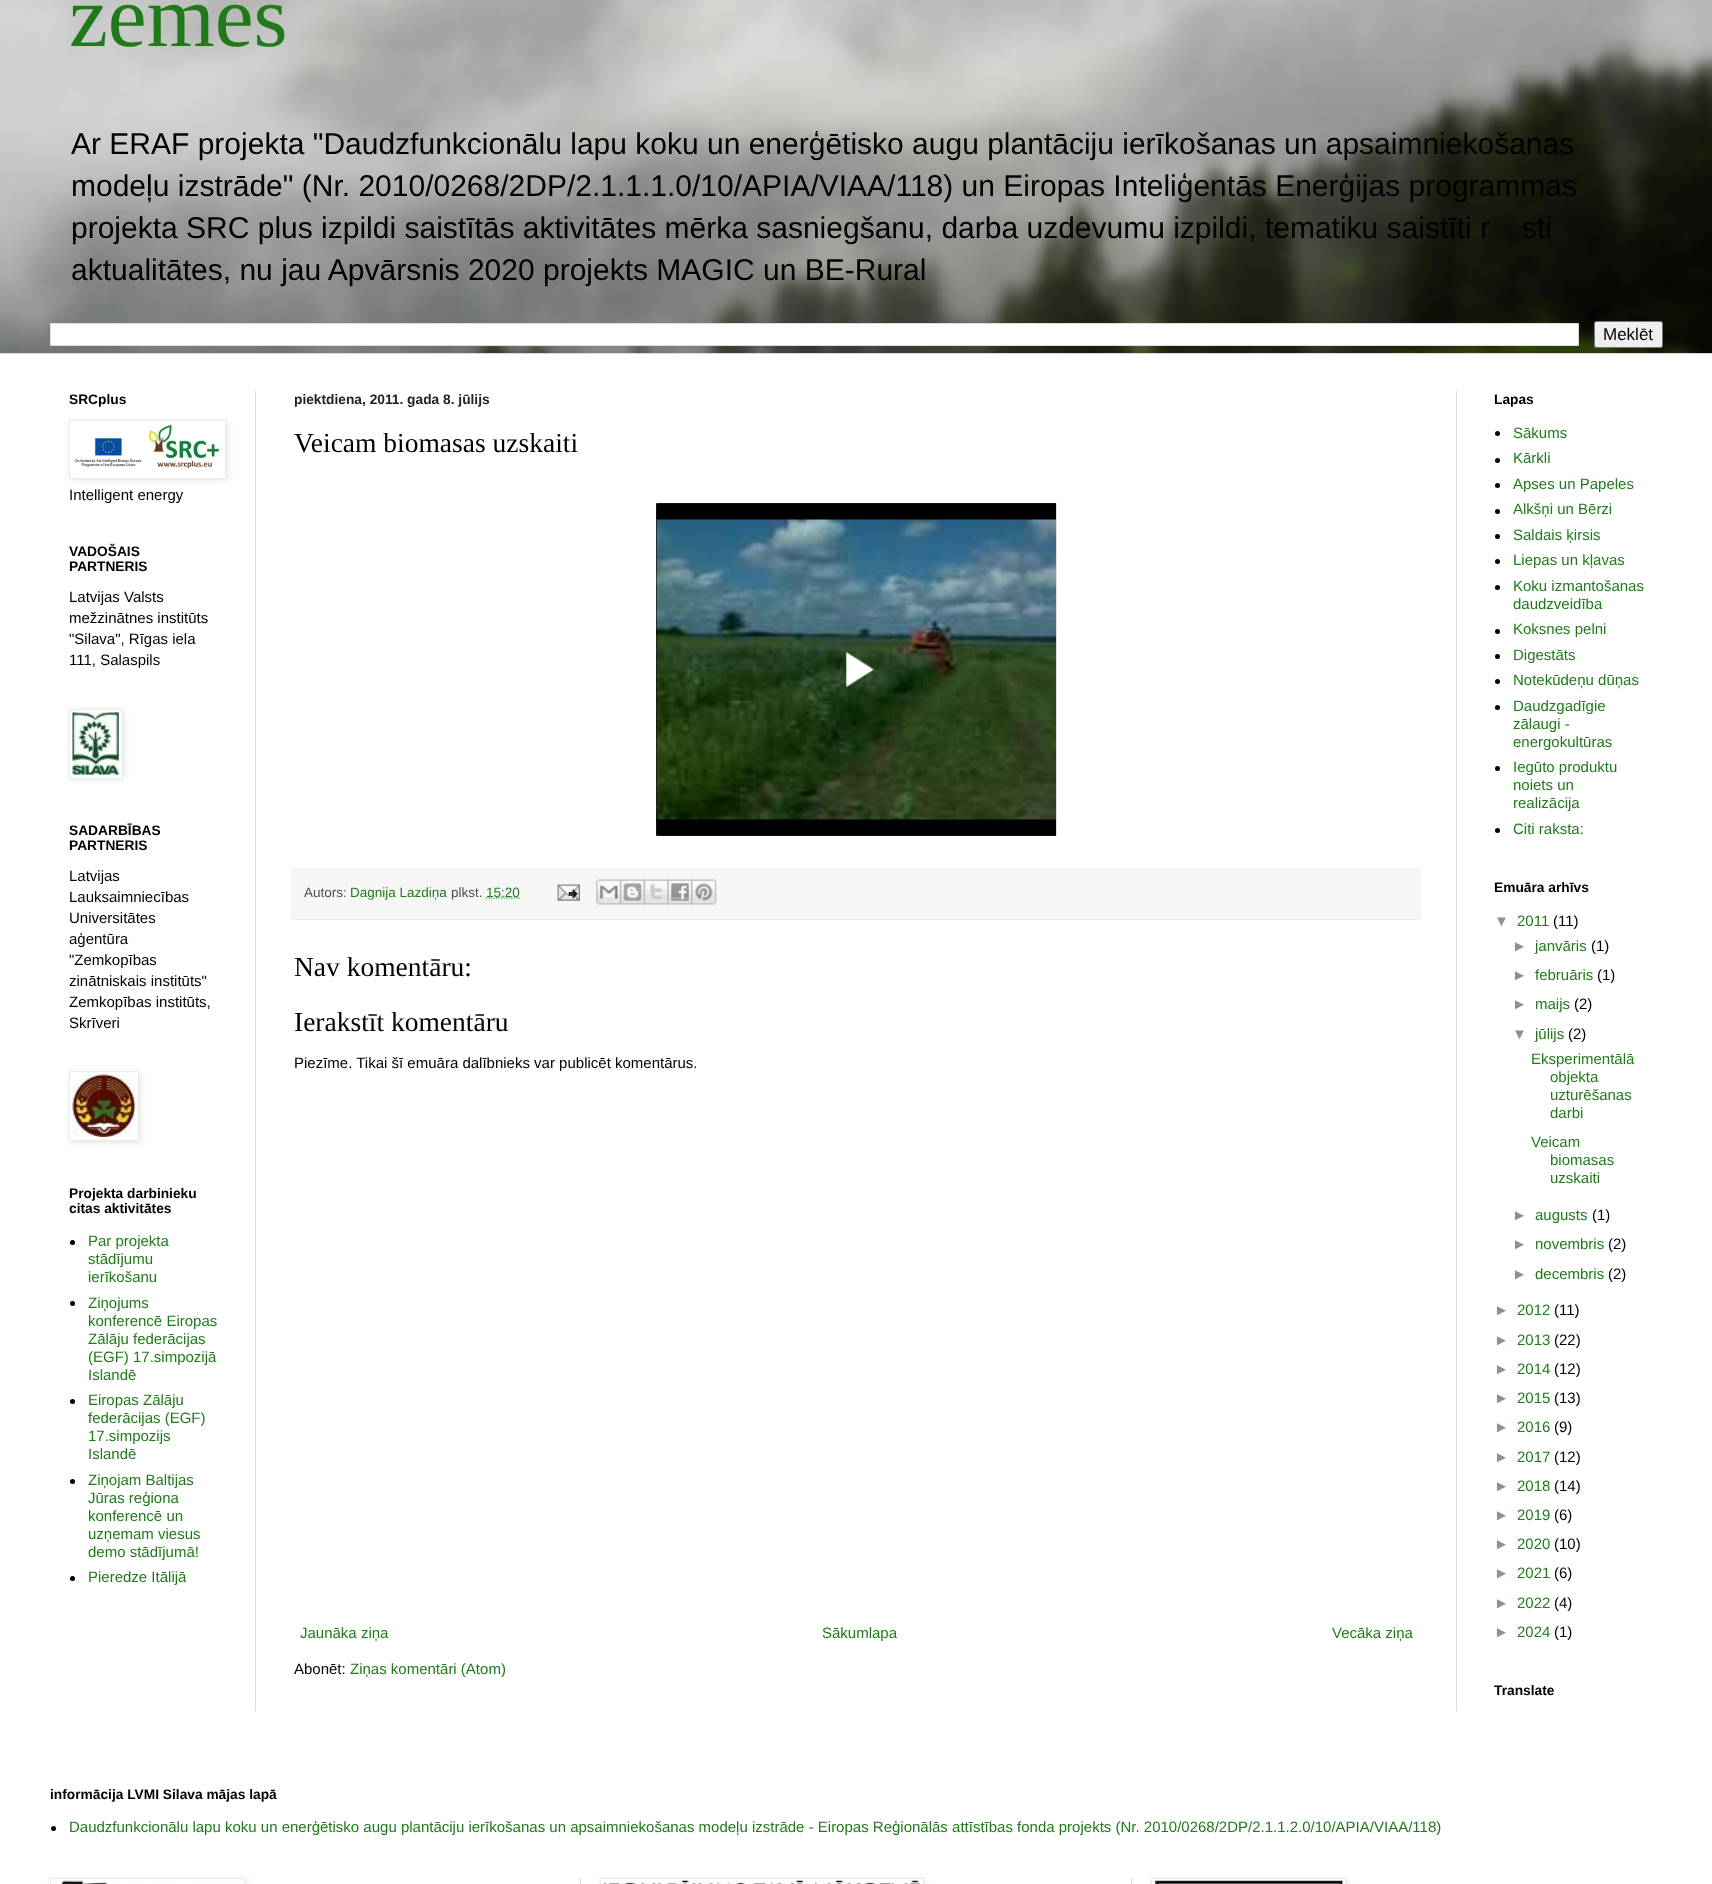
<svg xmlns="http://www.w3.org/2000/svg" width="1712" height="1884">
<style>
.a{font:87.5px Liberation Serif;fill:#207a1b}
.b{font:30px Liberation Sans;fill:#000}
.c{font:17px Liberation Sans;fill:#000}
.d{font:bold 13.75px Liberation Sans;fill:#000}
.e{font:15px Liberation Sans;fill:#000}
.f{font:15px Liberation Sans;fill:#207a1b}
.g{font:bold 13.75px Liberation Sans;fill:#222}
.h{font:27.5px Liberation Serif;fill:#000}
.i{font:13.5px Liberation Sans;fill:#4f4f4f}
.j{font:13.5px Liberation Sans;fill:#207a1b}
.k{font:15px Liberation Sans;fill:#909090}
</style>
<defs>
<clipPath id="clip1"><path d="M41 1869h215v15h-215zm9 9h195v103h-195z" clip-rule="evenodd"/></clipPath>
</defs>
<rect width="100%" height="100%" fill="#fff"/>
<image href="1.png" x="0" y="0" width="1712" height="353"/>
<path fill="#fff" stroke="#ddd" d="M50.5 323.5h1528v22H50.5z"/>
<rect fill="#efefef" stroke="#767676" x="1594.5" y="321.5" width="68" height="26" rx="2"/>
<path fill="#d9d9d9" d="M0 353h1712v1H0z"/>
<path fill="#d9d9d9" d="M255 391h1v1320H255z"/>
<path fill="#d9d9d9" d="M1456 391h1v1320H1456z"/>
<path fill="#0000001a" filter="blur(3px)" d="M70 421h158v59H70z"/>
<path fill="#fff" stroke="#ebebeb" d="M69.5 420.5h156v58H69.5z"/>
<image href="2.png" x="74" y="424" width="146" height="45"/>
<path fill="#0000001a" filter="blur(3px)" d="M70 710h54v70H70z"/>
<path fill="#fff" stroke="#ebebeb" d="M69.5 709.5h53v69H69.5z"/>
<image href="3.png" x="72" y="712" width="47" height="63"/>
<path fill="#0000001a" filter="blur(3px)" d="M70 1073h70v70H70z"/>
<path fill="#fff" stroke="#ebebeb" d="M69.5 1071.5h69v69H69.5z"/>
<image href="4.png" x="72" y="1074" width="63" height="63"/>
<circle fill="#000" cx="72.5" cy="1242.5" r="2.5"/>
<circle fill="#000" cx="72.5" cy="1303.5" r="2.5"/>
<circle fill="#000" cx="72.5" cy="1401.5" r="2.5"/>
<circle fill="#000" cx="72.5" cy="1481.5" r="2.5"/>
<circle fill="#000" cx="72.5" cy="1578.5" r="2.5"/>
<image href="5.png" x="656" y="503" width="401" height="333"/>
<path fill="#f6f6f6" d="M291 868h1130v51H291z"/>
<path fill="#ebebeb" d="M291 919h1130v1H291z"/>
<path fill="none" stroke="#207a1b" stroke-width="1.2" stroke-dasharray="1.25 1.25" d="M486 898h34"/>
<image href="6.png" x="557" y="884" width="23" height="17"/>
<image href="7.png" x="596" y="879" width="26" height="26"/>
<image href="8.png" x="620" y="879" width="25" height="26"/>
<image href="9.png" x="643" y="879" width="26" height="26"/>
<image href="10.png" x="667" y="879" width="26" height="26"/>
<image href="11.png" x="691" y="879" width="26" height="26"/>
<circle fill="#000" cx="1497.5" cy="433.5" r="2.5"/>
<circle fill="#000" cx="1497.5" cy="460.5" r="2.5"/>
<circle fill="#000" cx="1497.5" cy="485.5" r="2.5"/>
<circle fill="#000" cx="1497.5" cy="511.5" r="2.5"/>
<circle fill="#000" cx="1497.5" cy="536.5" r="2.5"/>
<circle fill="#000" cx="1497.5" cy="561.5" r="2.5"/>
<circle fill="#000" cx="1497.5" cy="587.5" r="2.5"/>
<circle fill="#000" cx="1497.5" cy="631.5" r="2.5"/>
<circle fill="#000" cx="1497.5" cy="656.5" r="2.5"/>
<circle fill="#000" cx="1497.5" cy="681.5" r="2.5"/>
<circle fill="#000" cx="1497.5" cy="707.5" r="2.5"/>
<circle fill="#000" cx="1497.5" cy="768.5" r="2.5"/>
<circle fill="#000" cx="1497.5" cy="830.5" r="2.5"/>
<circle fill="#000" cx="53.5" cy="1828.5" r="2.5"/>
<g clip-path="url(#clip1)">
<path fill="#0000001a" filter="blur(3px)" d="M51 1879h195v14H51z"/>
</g>
<path fill="none" stroke="#ebebeb" d="M50.5 1878.5h194v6H50.5z"/>
<image href="12.png" x="55" y="1880" width="181" height="4"/>
<path fill="#d9d9d9" d="M580 1878h1v6H580z"/>
<path fill="#0000001a" filter="blur(3px)" d="M601 1879h324v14H601z"/>
<path fill="#fff" stroke="#ebebeb" d="M600.5 1878.5h323v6H600.5z"/>
<image href="13.png" x="603" y="1880" width="317" height="4"/>
<path fill="#d9d9d9" d="M1131 1878h1v6H1131z"/>
<path fill="#0000001a" filter="blur(3px)" d="M1153 1879h195v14H1153z"/>
<path fill="#fff" stroke="#ebebeb" d="M1151.5 1878.5h194v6H1151.5z"/>
<image href="14.png" x="1155" y="1880" width="188" height="4"/>
<text class="a" x="69" y="46">zemēs</text>
<text class="b" x="71" y="154">Ar ERAF projekta "Daudzfunkcionālu lapu koku un enerģētisko augu plantāciju ierīkošanas un apsaimniekošanas</text>
<text class="b" x="71" y="196">modeļu izstrāde" (Nr. 2010/0268/2DP/2.1.1.1.0/10/APIA/VIAA/118) un Eiropas Inteliģentās Enerģijas programmas</text>
<text class="b" x="71" y="238">projekta SRC plus izpildi saistītās aktivitātes mērka sasniegšanu, darba uzdevumu izpildi, tematiku saistīti r</text>
<text class="b" x="1522" y="238">sti</text>
<text class="b" x="71" y="280">aktualitātes, nu jau Apvārsnis 2020 projekts MAGIC un BE-Rural</text>
<text class="c" x="1603" y="340">Meklēt</text>
<text class="d" x="69" y="404">SRCplus</text>
<text class="e" x="69" y="500">Intelligent energy</text>
<text class="d" x="69" y="556">VADOŠAIS</text>
<text class="d" x="69" y="571">PARTNERIS</text>
<text class="e" x="69" y="602">Latvijas Valsts</text>
<text class="e" x="69" y="623">mežzinātnes institūts</text>
<text class="e" x="69" y="644">"Silava", Rīgas iela</text>
<text class="e" x="69" y="665">111, Salaspils</text>
<text class="d" x="69" y="835">SADARBĪBAS</text>
<text class="d" x="69" y="850">PARTNERIS</text>
<text class="e" x="69" y="881">Latvijas</text>
<text class="e" x="69" y="902">Lauksaimniecības</text>
<text class="e" x="69" y="923">Universitātes</text>
<text class="e" x="69" y="944">aģentūra</text>
<text class="e" x="69" y="965">"Zemkopības</text>
<text class="e" x="69" y="986">zinātniskais institūts"</text>
<text class="e" x="69" y="1007">Zemkopības institūts,</text>
<text class="e" x="69" y="1028">Skrīveri</text>
<text class="d" x="69" y="1198">Projekta darbinieku</text>
<text class="d" x="69" y="1213">citas aktivitātes</text>
<text class="f" x="88" y="1246">Par projekta</text>
<text class="f" x="88" y="1264">stādījumu</text>
<text class="f" x="88" y="1282">ierīkošanu</text>
<text class="f" x="88" y="1308">Ziņojums</text>
<text class="f" x="88" y="1326">konferencē Eiropas</text>
<text class="f" x="88" y="1344">Zālāju federācijas</text>
<text class="f" x="88" y="1362">(EGF) 17.simpozijā</text>
<text class="f" x="88" y="1380">Islandē</text>
<text class="f" x="88" y="1405">Eiropas Zālāju</text>
<text class="f" x="88" y="1423">federācijas (EGF)</text>
<text class="f" x="88" y="1441">17.simpozijs</text>
<text class="f" x="88" y="1459">Islandē</text>
<text class="f" x="88" y="1485">Ziņojam Baltijas</text>
<text class="f" x="88" y="1503">Jūras reģiona</text>
<text class="f" x="88" y="1521">konferencē un</text>
<text class="f" x="88" y="1539">uzņemam viesus</text>
<text class="f" x="88" y="1557">demo stādījumā!</text>
<text class="f" x="88" y="1582">Pieredze Itālijā</text>
<text class="g" x="294" y="404">piektdiena, 2011. gada 8. jūlijs</text>
<text class="h" x="294" y="452">Veicam biomasas uzskaiti</text>
<text class="i" x="304" y="897">Autors:</text>
<text class="j" x="350" y="897">Dagnija Lazdiņa</text>
<text class="i" x="451" y="897">plkst.</text>
<text class="j" x="486" y="897">15:20</text>
<text class="h" x="294" y="976">Nav komentāru:</text>
<text class="h" x="294" y="1031">Ierakstīt komentāru</text>
<text class="e" x="294" y="1068">Piezīme. Tikai šī emuāra dalībnieks var publicēt komentārus.</text>
<text class="f" x="300" y="1638">Jaunāka ziņa</text>
<text class="f" x="822" y="1638">Sākumlapa</text>
<text class="f" x="1332" y="1638">Vecāka ziņa</text>
<text class="e" x="294" y="1674">Abonēt:</text>
<text class="f" x="350" y="1674">Ziņas komentāri (Atom)</text>
<text class="d" x="1494" y="404">Lapas</text>
<text class="f" x="1513" y="438">Sākums</text>
<text class="f" x="1513" y="463">Kārkli</text>
<text class="f" x="1513" y="489">Apses un Papeles</text>
<text class="f" x="1513" y="514">Alkšņi un Bērzi</text>
<text class="f" x="1513" y="540">Saldais ķirsis</text>
<text class="f" x="1513" y="565">Liepas un kļavas</text>
<text class="f" x="1513" y="591">Koku izmantošanas</text>
<text class="f" x="1513" y="609">daudzveidība</text>
<text class="f" x="1513" y="634">Koksnes pelni</text>
<text class="f" x="1513" y="660">Digestāts</text>
<text class="f" x="1513" y="685">Notekūdeņu dūņas</text>
<text class="f" x="1513" y="711">Daudzgadīgie</text>
<text class="f" x="1513" y="729">zālaugi -</text>
<text class="f" x="1513" y="747">energokultūras</text>
<text class="f" x="1513" y="772">Iegūto produktu</text>
<text class="f" x="1513" y="790">noiets un</text>
<text class="f" x="1513" y="808">realizācija</text>
<text class="f" x="1513" y="834">Citi raksta:</text>
<text class="d" x="1494" y="892">Emuāra arhīvs</text>
<text class="k" x="1494" y="926">▼</text>
<text class="f" x="1517" y="926">2011</text>
<text class="e" x="1553" y="926">(11)</text>
<text class="k" x="1512" y="951">►</text>
<text class="f" x="1535" y="951">janvāris</text>
<text class="e" x="1591" y="951">(1)</text>
<text class="k" x="1512" y="980">►</text>
<text class="f" x="1535" y="980">februāris</text>
<text class="e" x="1597" y="980">(1)</text>
<text class="k" x="1512" y="1009">►</text>
<text class="f" x="1535" y="1009">maijs</text>
<text class="e" x="1574" y="1009">(2)</text>
<text class="k" x="1512" y="1039">▼</text>
<text class="f" x="1535" y="1039">jūlijs</text>
<text class="e" x="1568" y="1039">(2)</text>
<text class="f" x="1531" y="1064">Eksperimentālā</text>
<text class="f" x="1550" y="1082">objekta</text>
<text class="f" x="1550" y="1100">uzturēšanas</text>
<text class="f" x="1550" y="1118">darbi</text>
<text class="f" x="1531" y="1147">Veicam</text>
<text class="f" x="1550" y="1165">biomasas</text>
<text class="f" x="1550" y="1183">uzskaiti</text>
<text class="k" x="1512" y="1220">►</text>
<text class="f" x="1535" y="1220">augusts</text>
<text class="e" x="1592" y="1220">(1)</text>
<text class="k" x="1512" y="1249">►</text>
<text class="f" x="1535" y="1249">novembris</text>
<text class="e" x="1608" y="1249">(2)</text>
<text class="k" x="1512" y="1279">►</text>
<text class="f" x="1535" y="1279">decembris</text>
<text class="e" x="1608" y="1279">(2)</text>
<text class="k" x="1494" y="1315">►</text>
<text class="f" x="1517" y="1315">2012</text>
<text class="e" x="1554" y="1315">(11)</text>
<text class="k" x="1494" y="1345">►</text>
<text class="f" x="1517" y="1345">2013</text>
<text class="e" x="1554" y="1345">(22)</text>
<text class="k" x="1494" y="1374">►</text>
<text class="f" x="1517" y="1374">2014</text>
<text class="e" x="1554" y="1374">(12)</text>
<text class="k" x="1494" y="1403">►</text>
<text class="f" x="1517" y="1403">2015</text>
<text class="e" x="1554" y="1403">(13)</text>
<text class="k" x="1494" y="1432">►</text>
<text class="f" x="1517" y="1432">2016</text>
<text class="e" x="1554" y="1432">(9)</text>
<text class="k" x="1494" y="1462">►</text>
<text class="f" x="1517" y="1462">2017</text>
<text class="e" x="1554" y="1462">(12)</text>
<text class="k" x="1494" y="1491">►</text>
<text class="f" x="1517" y="1491">2018</text>
<text class="e" x="1554" y="1491">(14)</text>
<text class="k" x="1494" y="1520">►</text>
<text class="f" x="1517" y="1520">2019</text>
<text class="e" x="1554" y="1520">(6)</text>
<text class="k" x="1494" y="1549">►</text>
<text class="f" x="1517" y="1549">2020</text>
<text class="e" x="1554" y="1549">(10)</text>
<text class="k" x="1494" y="1578">►</text>
<text class="f" x="1517" y="1578">2021</text>
<text class="e" x="1554" y="1578">(6)</text>
<text class="k" x="1494" y="1608">►</text>
<text class="f" x="1517" y="1608">2022</text>
<text class="e" x="1554" y="1608">(4)</text>
<text class="k" x="1494" y="1637">►</text>
<text class="f" x="1517" y="1637">2024</text>
<text class="e" x="1554" y="1637">(1)</text>
<text class="d" x="1494" y="1695">Translate</text>
<text class="d" x="50" y="1799">informācija LVMI Silava mājas lapā</text>
<text class="f" x="69" y="1832">Daudzfunkcionālu lapu koku un enerģētisko augu plantāciju ierīkošanas un apsaimniekošanas modeļu izstrāde - Eiropas Reģionālās attīstības fonda projekts (Nr. 2010/0268/2DP/2.1.1.2.0/10/APIA/VIAA/118)</text>
</svg>
